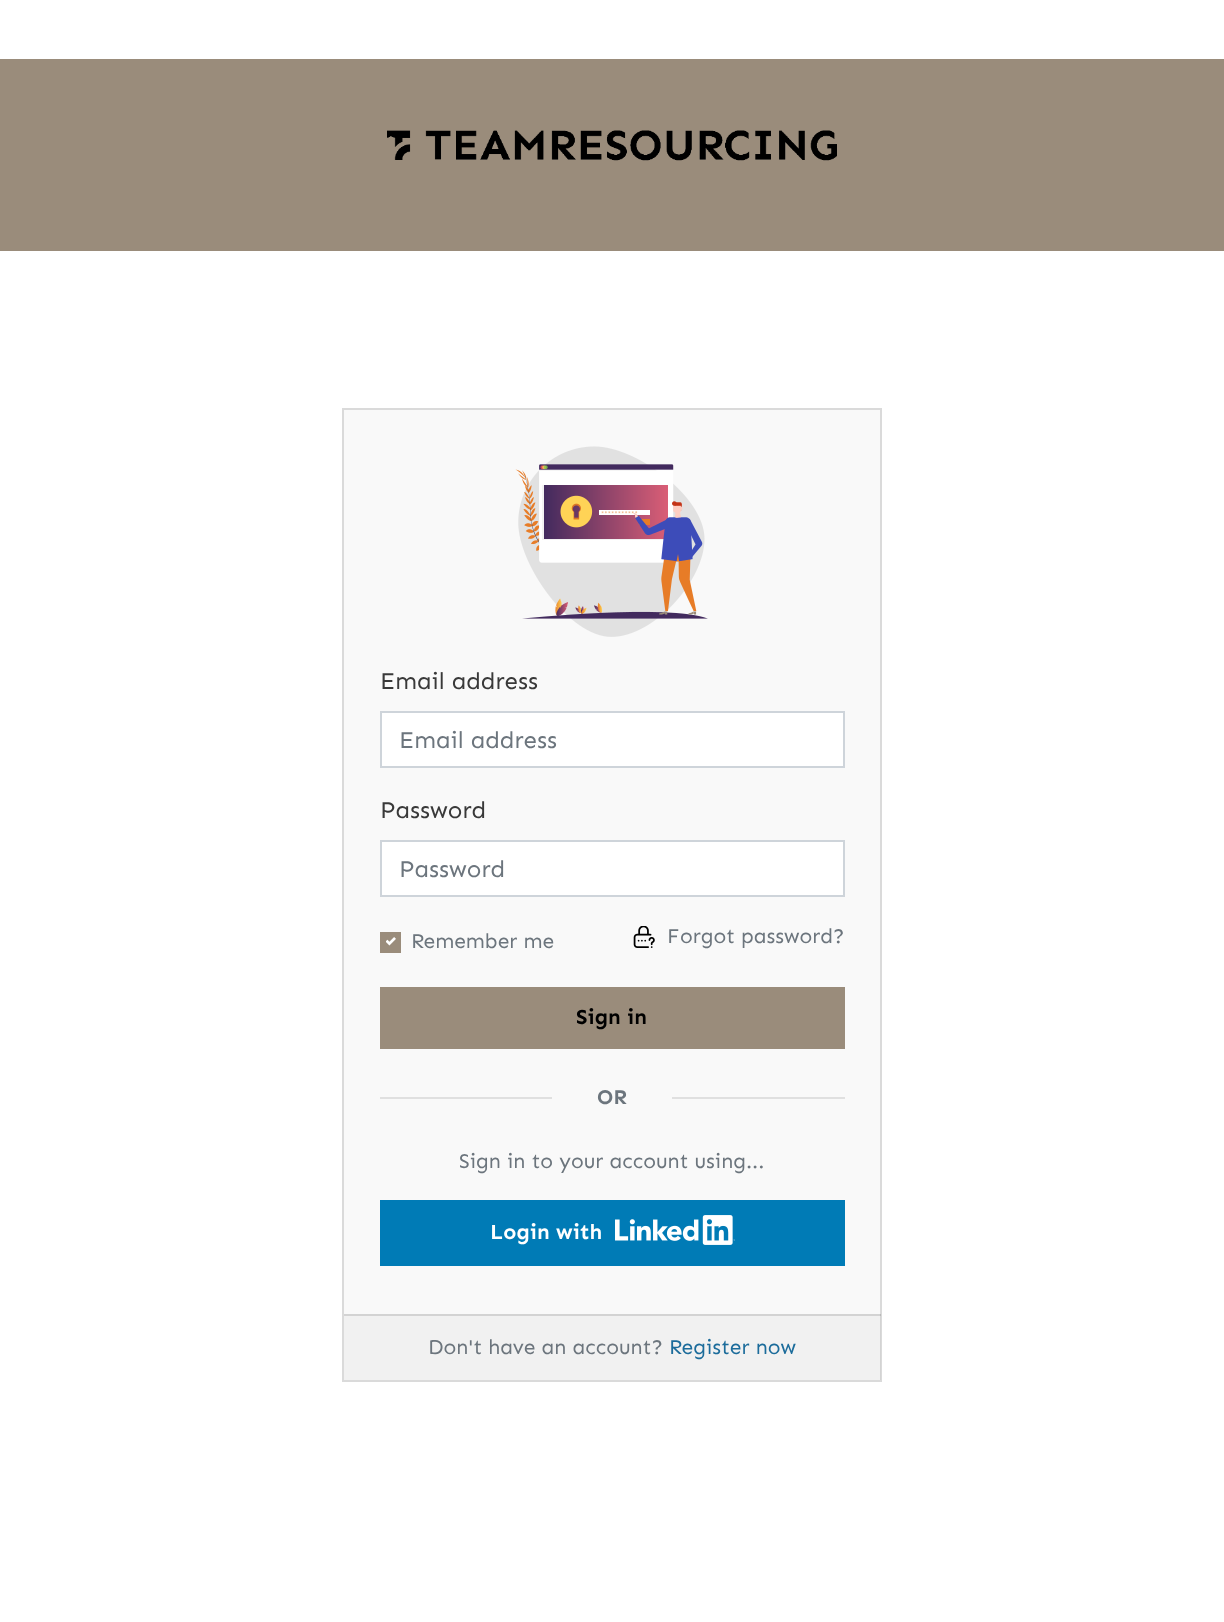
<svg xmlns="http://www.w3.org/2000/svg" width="1224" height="1622">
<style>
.a{font:24px Sen;fill:#393939}
.b{font:24px Sen;fill:#6c757d}
.c{font:21px Sen;fill:#6c757d}
.d{font:bold 21.5px Sen;fill:#000}
.e{font:bold 21px Sen;fill:#6c757d}
.f{font:bold 21.5px Sen;fill:#fff}
.g{font:21px Sen;fill:#1c6c9b}
</style>
<rect width="100%" height="100%" fill="#fff"/>
<path fill="#9a8c7b" d="M0 59h1224v192H0z"/>
<image href="1.png" x="387" y="130" width="450" height="31"/>
<path fill="#f9f9f9" stroke="#dadada" stroke-width="2" d="M343 409h538v972H343z"/>
<image href="2.png" x="515" y="446" width="193" height="191"/>
<path fill="#fff" stroke="#ced4da" stroke-width="2" d="M381 712h463v55H381z"/>
<path fill="#fff" stroke="#ced4da" stroke-width="2" d="M381 841h463v55H381z"/>
<path fill="#9a8c7b" d="M380 932h21v21H380z"/>
<image href="3.png" x="386" y="937" width="10" height="9"/>
<image href="4.png" x="633" y="926" width="22" height="22"/>
<path fill="#9a8c7b" d="M380 987h465v62H380z"/>
<path fill="#e0e0e0" d="M380 1097h172v2H380z"/>
<path fill="#e0e0e0" d="M672 1097h173v2H672z"/>
<path fill="#007bb6" d="M380 1200h465v66H380z"/>
<image href="5.png" x="615" y="1215" width="120" height="30"/>
<path fill="#00000008" d="M344 1314h537v66H344z"/>
<path fill="#0000001f" d="M344 1314h537v2H344z"/>
<text class="a" x="380" y="689">Email address</text>
<text class="b" x="399" y="748">Email address</text>
<text class="a" x="380" y="818">Password</text>
<text class="b" x="399" y="877">Password</text>
<text class="c" x="411" y="948">Remember me</text>
<text class="c" x="667" y="943">Forgot password?</text>
<text class="d" x="576" y="1024">Sign in</text>
<text class="e" x="597" y="1104">OR</text>
<text class="c" x="459" y="1168">Sign in to your account using...</text>
<text class="f" x="490" y="1239">Login with</text>
<text class="c" x="428" y="1354">Don't have an account?</text>
<text class="g" x="669" y="1354">Register now</text>
</svg>
